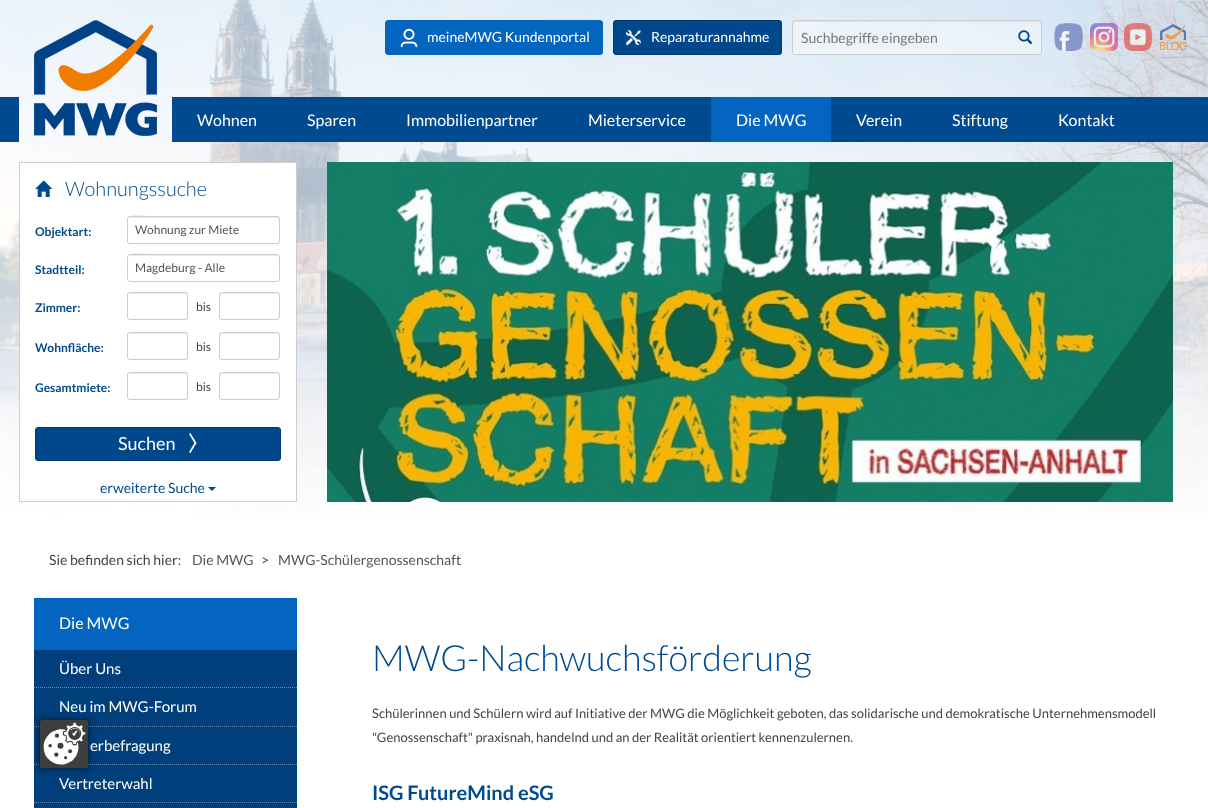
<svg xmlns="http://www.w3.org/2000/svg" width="1208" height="808">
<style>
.a{font:14px Lato;fill:#fff}
.b{font:14px Lato;fill:#777}
.c{font:16px Lato;fill:#fff}
.d{font:300 20px Lato;fill:#004a8f}
.e{font:bold 12px Lato;fill:#004a8f}
.f{font:12px Lato;fill:#555}
.g{font:12px Lato;fill:#444}
.h{font:18px Lato;fill:#fff}
.i{font:14px Lato;fill:#004a8f}
.j{font:14px Lato;fill:#444}
.k{font:14px Lato;fill:#555}
.l{font:15px Lato;fill:#fff}
.m{font:300 36px Lato;fill:#004a8f}
.n{font:13px Lato;fill:#444}
.o{font:bold 20px Lato;fill:#004a8f}
</style>
<rect width="100%" height="100%" fill="#fff"/>
<image href="1.png" x="0" y="0" width="1208" height="520"/>
<image href="2.png" x="34" y="20" width="123" height="116"/>
<rect fill="#0365c0" stroke="#0365c0" x="385.5" y="20.5" width="217" height="34" rx="2.5"/>
<image href="3.png" x="400" y="28" width="18" height="20"/>
<rect fill="#01478b" stroke="#013a72" x="613.5" y="20.5" width="168" height="34" rx="2.5"/>
<image href="4.png" x="626" y="30" width="15" height="16"/>
<rect fill="#ffffff66" x="792" y="20" width="250" height="35" rx="3"/>
<path fill="#00000012" d="M795 22h244c1 0 2 1 2 2c0-1 0-3-2-3h-244c-2 0-2 2-2 3c0-1 1-2 2-2z"/>
<rect fill="none" stroke="#ccc" x="792.5" y="20.5" width="249" height="34" rx="2.5"/>
<image href="5.png" x="1018" y="30" width="15" height="15"/>
<image href="6.png" x="1054" y="23" width="29" height="28"/>
<image href="7.png" x="1090" y="23" width="28" height="28"/>
<image href="8.png" x="1124" y="23" width="28" height="28"/>
<image href="9.png" x="1159" y="24" width="28" height="26"/>
<path fill="#004a8f" d="M0 97h19v45H0z"/>
<path fill="#004a8f" d="M172 97h1036v45H172z"/>
<path fill="#0365c0" d="M711 97h120v45H711z"/>
<path fill="#fff" stroke="#ccc" d="M19.5 162.5h277v339H19.5z"/>
<image href="10.png" x="35" y="180" width="18" height="17"/>
<path fill="#ececec" d="M130 218h147c1 0 2 1 2 2c0-1 0-2-1-3h-124c-2 0-26-6-26 3c0-1 1-2 2-2z"/>
<rect fill="none" stroke="#ccc" x="127.5" y="216.5" width="152" height="27" rx="2.5"/>
<path fill="#ececec" d="M130 256h147c1 0 2 1 2 2c0-1 0-2-1-3h-124c-2 0-26-6-26 3c0-1 1-2 2-2z"/>
<rect fill="none" stroke="#ccc" x="127.5" y="254.5" width="152" height="27" rx="2.5"/>
<path fill="#ececec" d="M130 294h55c1 0 2 1 2 2c0-5-7-3-11-3h-37c-4 0-11-2-11 3c0-1 1-2 2-2z"/>
<rect fill="none" stroke="#ccc" x="127.5" y="292.5" width="60" height="27" rx="2.5"/>
<path fill="#ececec" d="M222 294h55c1 0 2 1 2 2c0-5-7-3-11-3h-37c-4 0-11-2-11 3c0-1 1-2 2-2z"/>
<rect fill="none" stroke="#ccc" x="219.5" y="292.5" width="60" height="27" rx="2.5"/>
<path fill="#ececec" d="M130 334h55c1 0 2 1 2 2c0-5-7-3-11-3h-37c-4 0-11-2-11 3c0-1 1-2 2-2z"/>
<rect fill="none" stroke="#ccc" x="127.5" y="332.5" width="60" height="27" rx="2.5"/>
<path fill="#ececec" d="M222 334h55c1 0 2 1 2 2c0-5-7-3-11-3h-37c-4 0-11-2-11 3c0-1 1-2 2-2z"/>
<rect fill="none" stroke="#ccc" x="219.5" y="332.5" width="60" height="27" rx="2.5"/>
<path fill="#ececec" d="M130 374h55c1 0 2 1 2 2c0-5-7-3-11-3h-37c-4 0-11-2-11 3c0-1 1-2 2-2z"/>
<rect fill="none" stroke="#ccc" x="127.5" y="372.5" width="60" height="27" rx="2.5"/>
<path fill="#ececec" d="M222 374h55c1 0 2 1 2 2c0-5-7-3-11-3h-37c-4 0-11-2-11 3c0-1 1-2 2-2z"/>
<rect fill="none" stroke="#ccc" x="219.5" y="372.5" width="60" height="27" rx="2.5"/>
<rect fill="#01478b" stroke="#013a72" x="35.5" y="427.5" width="245" height="33" rx="2.5"/>
<image href="11.png" x="189" y="433" width="8" height="20"/>
<path fill="#01478b" d="M208 487h8l-4 4z"/>
<image href="12.png" x="327" y="162" width="846" height="340"/>
<path fill="#0365c0" d="M34 598h263v52H34z"/>
<path fill="#003f7b" d="M34 650h263v158H34z"/>
<path fill="none" stroke="#668cb0" stroke-dasharray="1 1" d="M34 687.5h263"/>
<path fill="none" stroke="#668cb0" stroke-dasharray="1 1" d="M34 726.5h263"/>
<path fill="none" stroke="#668cb0" stroke-dasharray="1 1" d="M34 764.5h263"/>
<path fill="none" stroke="#668cb0" stroke-dasharray="1 1" d="M34 802.5h263"/>
<path fill="#00000080" filter="blur(3px)" d="M39 719h50v50H39z"/>
<image href="13.png" x="40" y="720" width="48" height="48"/>
<text class="a" x="427" y="42">meineMWG Kundenportal</text>
<text class="a" x="651" y="42">Reparaturannahme</text>
<text class="b" x="801" y="43">Suchbegriffe eingeben</text>
<text class="c" x="197" y="126">Wohnen</text>
<text class="c" x="307" y="126">Sparen</text>
<text class="c" x="406" y="126">Immobilienpartner</text>
<text class="c" x="588" y="126">Mieterservice</text>
<text class="c" x="736" y="126">Die MWG</text>
<text class="c" x="856" y="126">Verein</text>
<text class="c" x="952" y="126">Stiftung</text>
<text class="c" x="1058" y="126">Kontakt</text>
<text class="d" x="65" y="196">Wohnungssuche</text>
<text class="e" x="35" y="236">Objektart:</text>
<text class="f" x="135" y="234">Wohnung zur Miete</text>
<text class="e" x="35" y="274">Stadtteil:</text>
<text class="f" x="135" y="272">Magdeburg - Alle</text>
<text class="e" x="35" y="312">Zimmer:</text>
<text class="g" x="196" y="311">bis</text>
<text class="e" x="35" y="352">Wohnfläche:</text>
<text class="g" x="196" y="351">bis</text>
<text class="e" x="35" y="392">Gesamtmiete:</text>
<text class="g" x="196" y="391">bis</text>
<text class="h" x="118" y="450">Suchen</text>
<text class="i" x="100" y="493">erweiterte Suche</text>
<text class="j" x="49" y="565">Sie befinden sich hier:</text>
<text class="k" x="192" y="565">Die MWG</text>
<text class="j" x="261" y="565">&gt;</text>
<text class="k" x="278" y="565">MWG-Schülergenossenschaft</text>
<text class="c" x="59" y="629">Die MWG</text>
<text class="l" x="59" y="674">Über Uns</text>
<text class="l" x="59" y="712">Neu im MWG-Forum</text>
<text class="l" x="90" y="751">erbefragung</text>
<text class="l" x="59" y="789">Vertreterwahl</text>
<text class="m" x="372" y="671">MWG-Nachwuchsförderung</text>
<text class="n" x="372" y="718">Schülerinnen und Schülern wird auf Initiative der MWG die Möglichkeit geboten, das solidarische und demokratische Unternehmensmodell</text>
<text class="n" x="372" y="742">"Genossenschaft" praxisnah, handelnd und an der Realität orientiert kennenzulernen.</text>
<text class="o" x="372" y="800">ISG FutureMind eSG</text>
</svg>
